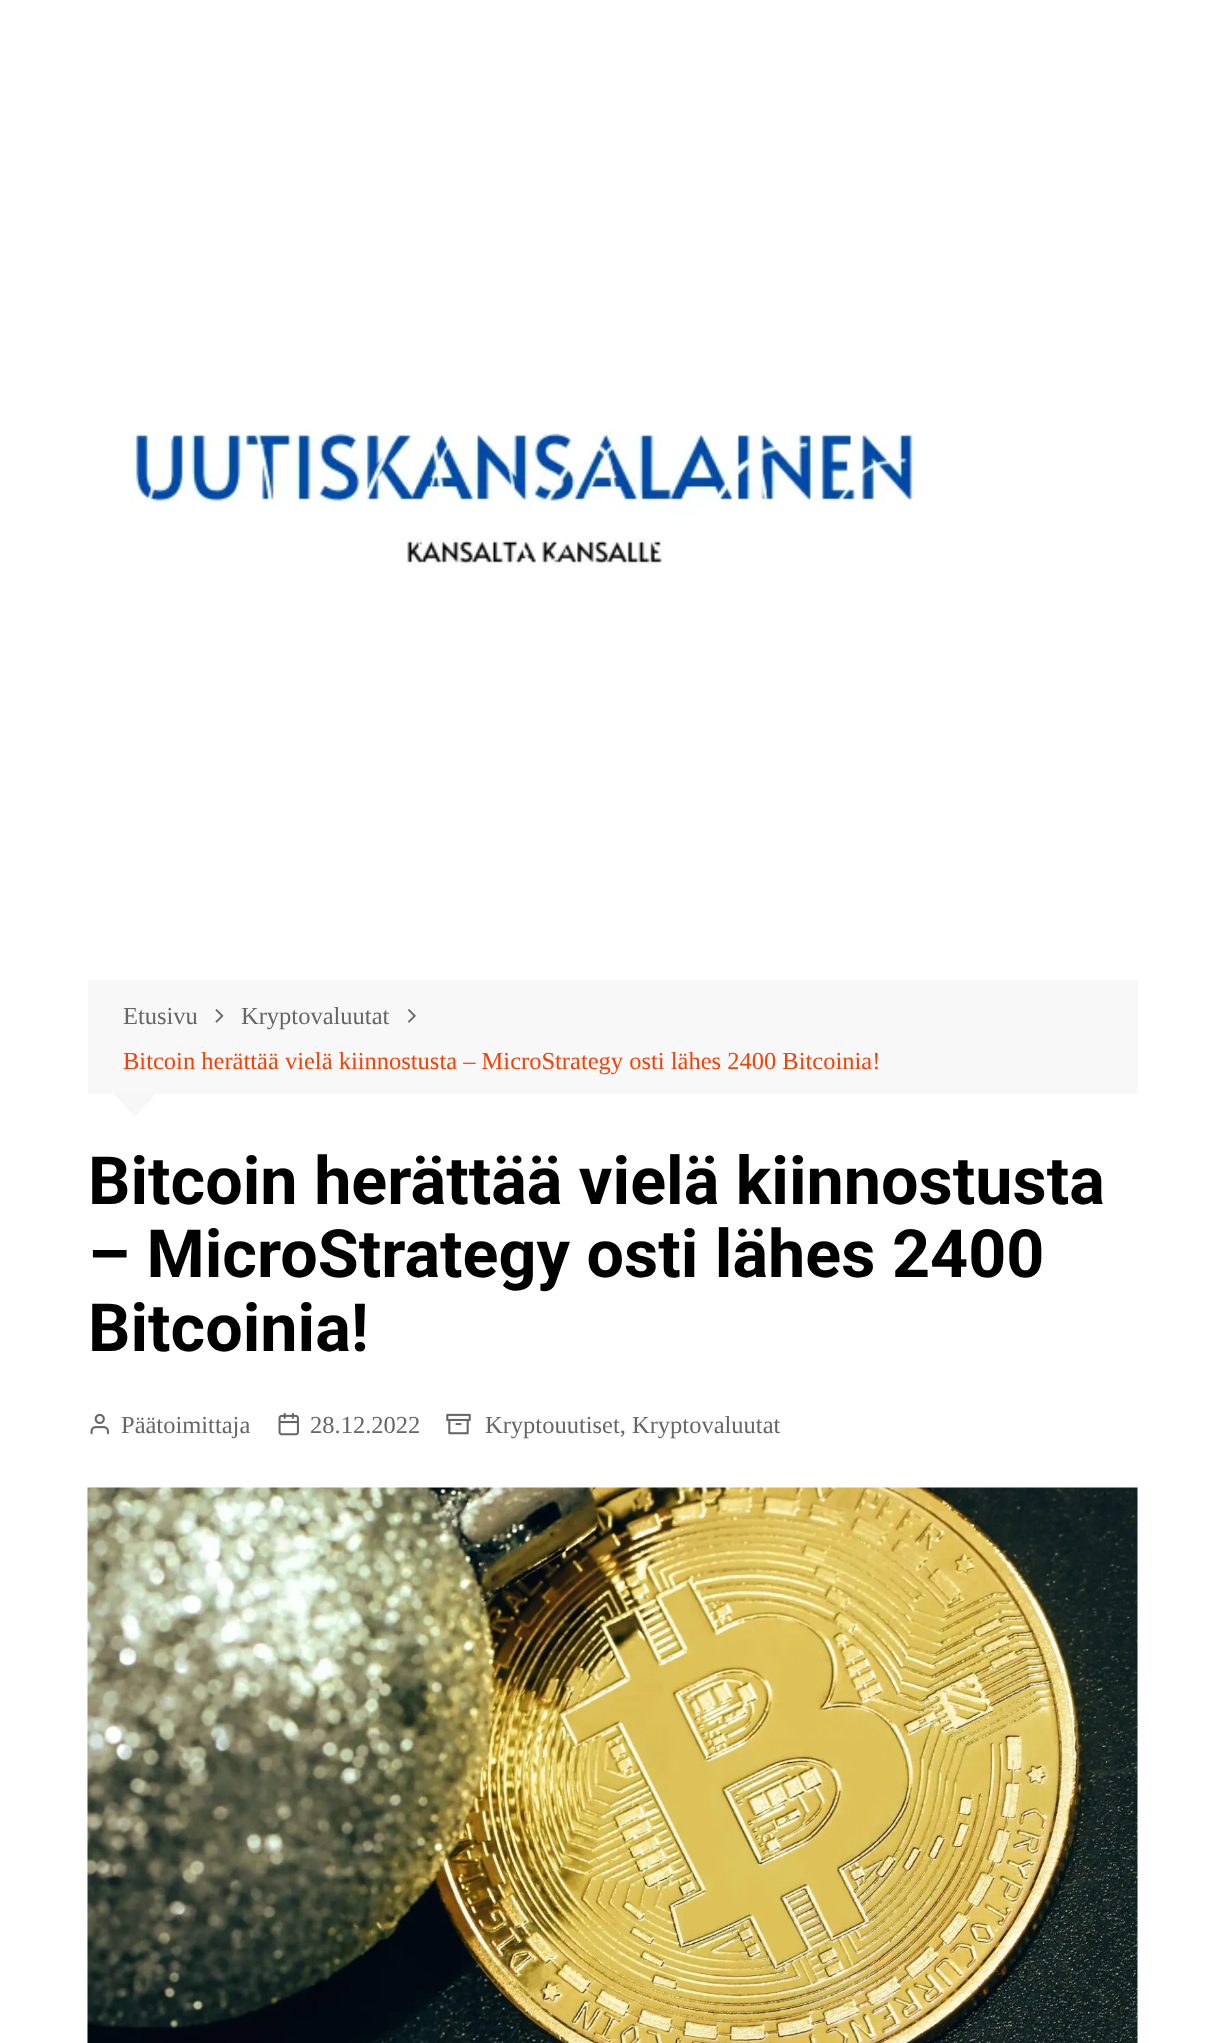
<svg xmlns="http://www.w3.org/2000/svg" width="1225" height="2043">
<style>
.a{font:24.5px Liberation Serif;fill:#666}
.b{font:24.5px Liberation Serif;fill:#ff3d00}
.c{font:bold 66.5px Roboto;fill:#010101}
</style>
<rect width="100%" height="100%" fill="#fff"/>
<image href="1.png" x="129" y="431" width="785" height="134"/>
<path fill="#f8f8f8" d="M88 980h1050v114H88z"/>
<image href="2.png" x="215" y="1009" width="9" height="14"/>
<image href="3.png" x="408" y="1009" width="8" height="14"/>
<path fill="#f7f7f7" d="M114 1094h42l-21 23z"/>
<image href="4.png" x="90" y="1413" width="19" height="22"/>
<image href="5.png" x="278" y="1412" width="21" height="24"/>
<image href="6.png" x="446" y="1413" width="25" height="22"/>
<image href="7.png" x="87" y="1487" width="1051" height="556"/>
<text class="a" x="123" y="1024">Etusivu</text>
<text class="a" x="241" y="1024">Kryptovaluutat</text>
<text class="b" x="123" y="1069">Bitcoin herättää vielä kiinnostusta – MicroStrategy osti lähes 2400 Bitcoinia!</text>
<text class="c" x="88" y="1204">Bitcoin herättää vielä kiinnostusta</text>
<text class="c" x="88" y="1277">– MicroStrategy osti lähes 2400</text>
<text class="c" x="88" y="1351">Bitcoinia!</text>
<text class="a" x="121" y="1433">Päätoimittaja</text>
<text class="a" x="310" y="1433">28.12.2022</text>
<text class="a" x="485" y="1433">Kryptouutiset, Kryptovaluutat</text>
</svg>
